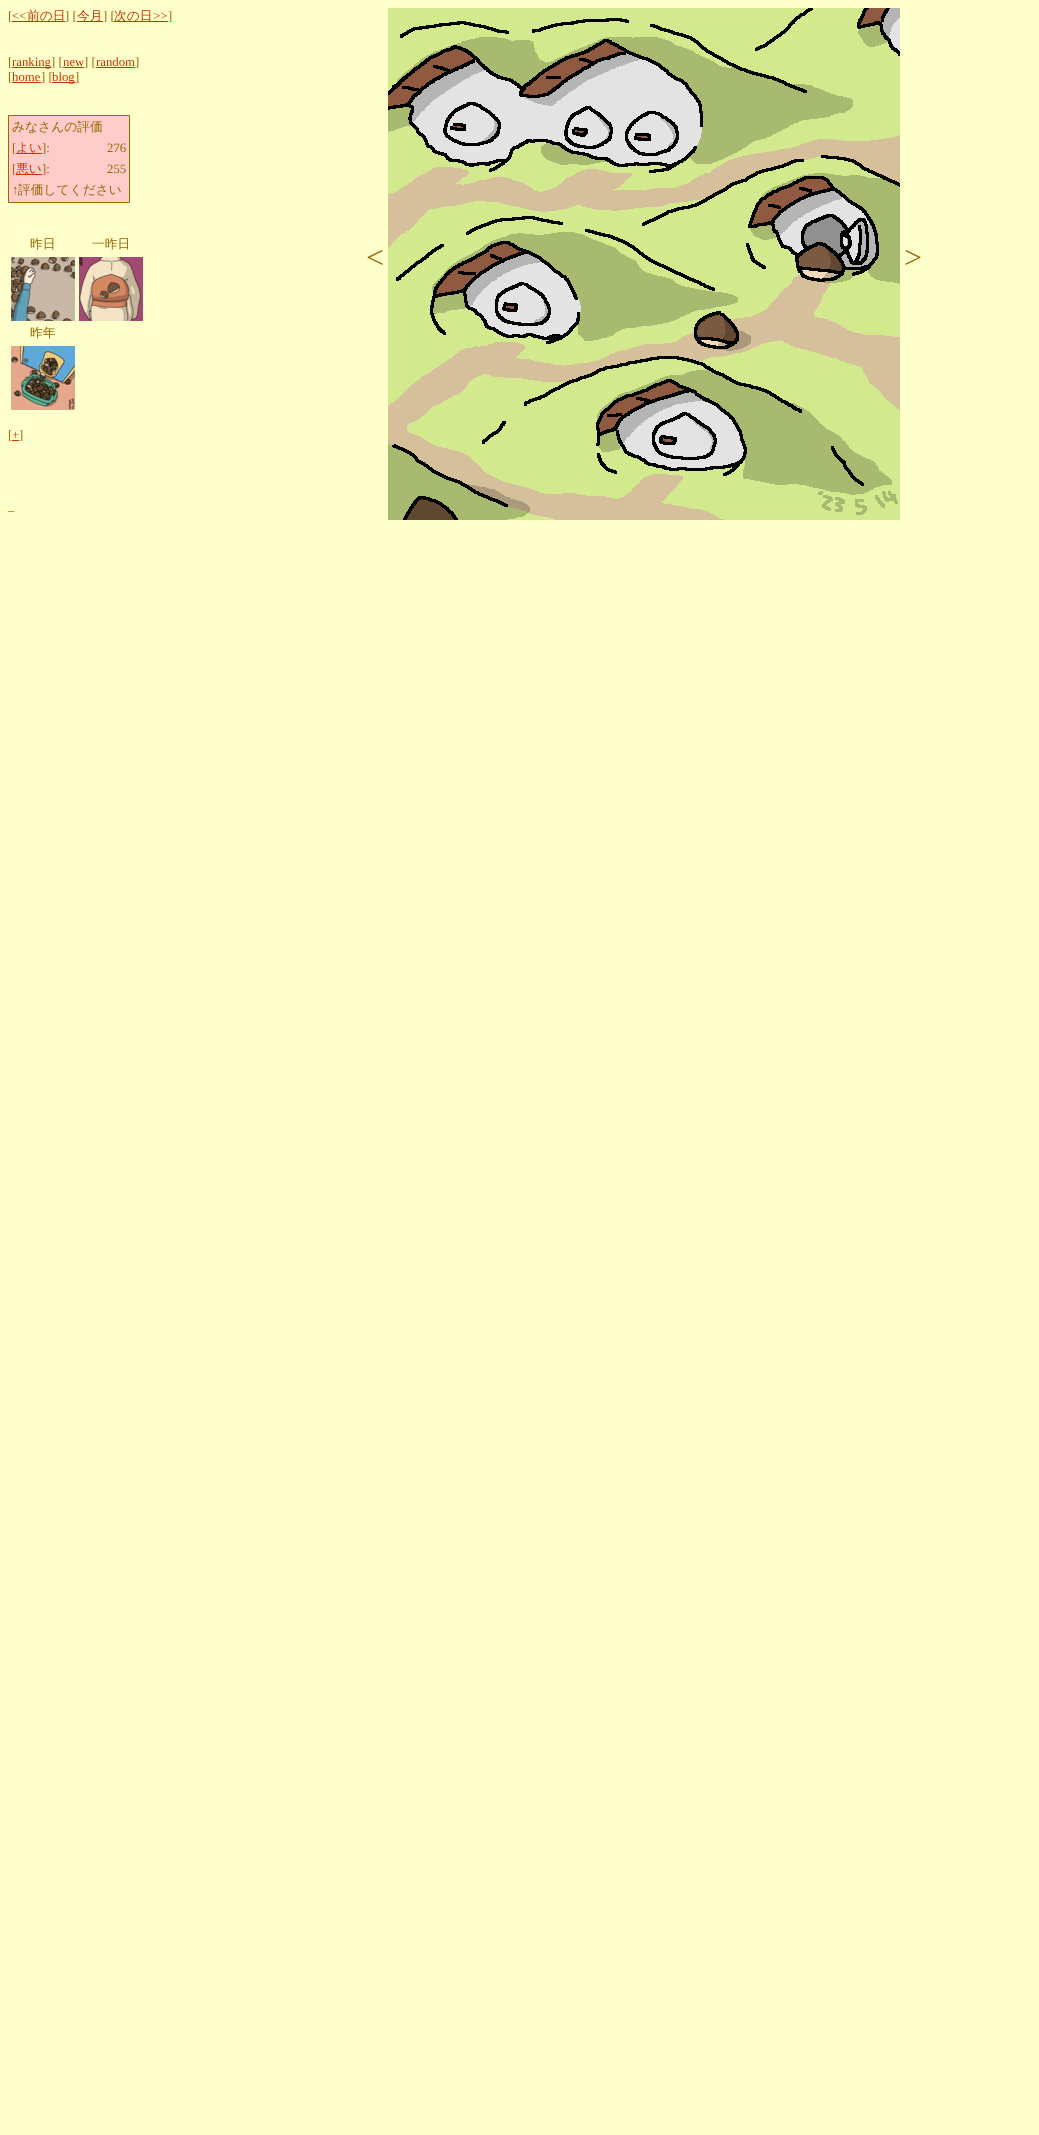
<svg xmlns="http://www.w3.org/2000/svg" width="1039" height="2135">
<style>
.a{font:12.75px Liberation Serif;fill:#960}
.b{font:12.75px Liberation Serif;fill:#c30}
.c{font:500 12.75px WenQuanYi Zen Hei;fill:#c30}
.d{font:500 12.75px WenQuanYi Zen Hei;fill:#960}
.e{font:32px Liberation Serif;fill:#960}
</style>
<rect width="100%" height="100%" fill="#ffc"/>
<path fill="#c30" d="M12 21h53v1H12z"/>
<path fill="#c30" d="M77 21h26v1H77z"/>
<path fill="#c30" d="M114 21h54v1H114z"/>
<path fill="#c30" d="M12 67h39v1H12z"/>
<path fill="#c30" d="M63 67h21v1H63z"/>
<path fill="#c30" d="M96 67h39v1H96z"/>
<path fill="#c30" d="M12 82h29v1H12z"/>
<path fill="#c30" d="M52 82h23v1H52z"/>
<path fill="#fcc" stroke="#960" d="M8.5 115.5h121v87H8.5z"/>
<path fill="#c30" d="M16 153h26v1H16z"/>
<path fill="#c30" d="M16 174h26v1H16z"/>
<image href="1.png" x="11" y="257" width="64" height="64"/>
<image href="2.png" x="79" y="257" width="64" height="64"/>
<image href="3.png" x="11" y="346" width="64" height="64"/>
<path fill="#c30" d="M12 440h7v1H12z"/>
<image href="4.png" x="388" y="8" width="512" height="512"/>
<text class="a" x="8" y="20">[</text>
<text class="b" x="12" y="20">&lt;&lt;</text>
<text class="c" x="27" y="20">前の日</text>
<text class="a" x="65" y="20">] [</text>
<text class="c" x="77" y="20">今月</text>
<text class="a" x="103" y="20">] [</text>
<text class="c" x="114" y="20">次の日</text>
<text class="b" x="153" y="20">&gt;&gt;</text>
<text class="a" x="168" y="20">]</text>
<text class="a" x="8" y="66">[</text>
<text class="b" x="12" y="66">ranking</text>
<text class="a" x="51" y="66">] [</text>
<text class="b" x="63" y="66">new</text>
<text class="a" x="84" y="66">] [</text>
<text class="b" x="96" y="66">random</text>
<text class="a" x="135" y="66">]</text>
<text class="a" x="8" y="81">[</text>
<text class="b" x="12" y="81">home</text>
<text class="a" x="41" y="81">] [</text>
<text class="b" x="52" y="81">blog</text>
<text class="a" x="75" y="81">]</text>
<text class="d" x="12" y="131">みなさんの評価</text>
<text class="a" x="12" y="152">[</text>
<text class="c" x="16" y="152">よい</text>
<text class="a" x="42" y="152">]:</text>
<text class="a" x="107" y="152">276</text>
<text class="a" x="12" y="173">[</text>
<text class="c" x="16" y="173">悪い</text>
<text class="a" x="42" y="173">]:</text>
<text class="a" x="107" y="173">255</text>
<text class="a" x="12" y="194">↑</text>
<text class="d" x="18" y="194">評価してください</text>
<text class="d" x="30" y="248">昨日</text>
<text class="d" x="92" y="248">一昨日</text>
<text class="d" x="30" y="337">昨年</text>
<text class="a" x="8" y="439">[</text>
<text class="b" x="12" y="439">+</text>
<text class="a" x="19" y="439">]</text>
<text class="a" x="8" y="510">_</text>
<text class="e" x="366" y="268">&lt;</text>
<text class="e" x="904" y="268">&gt;</text>
</svg>
